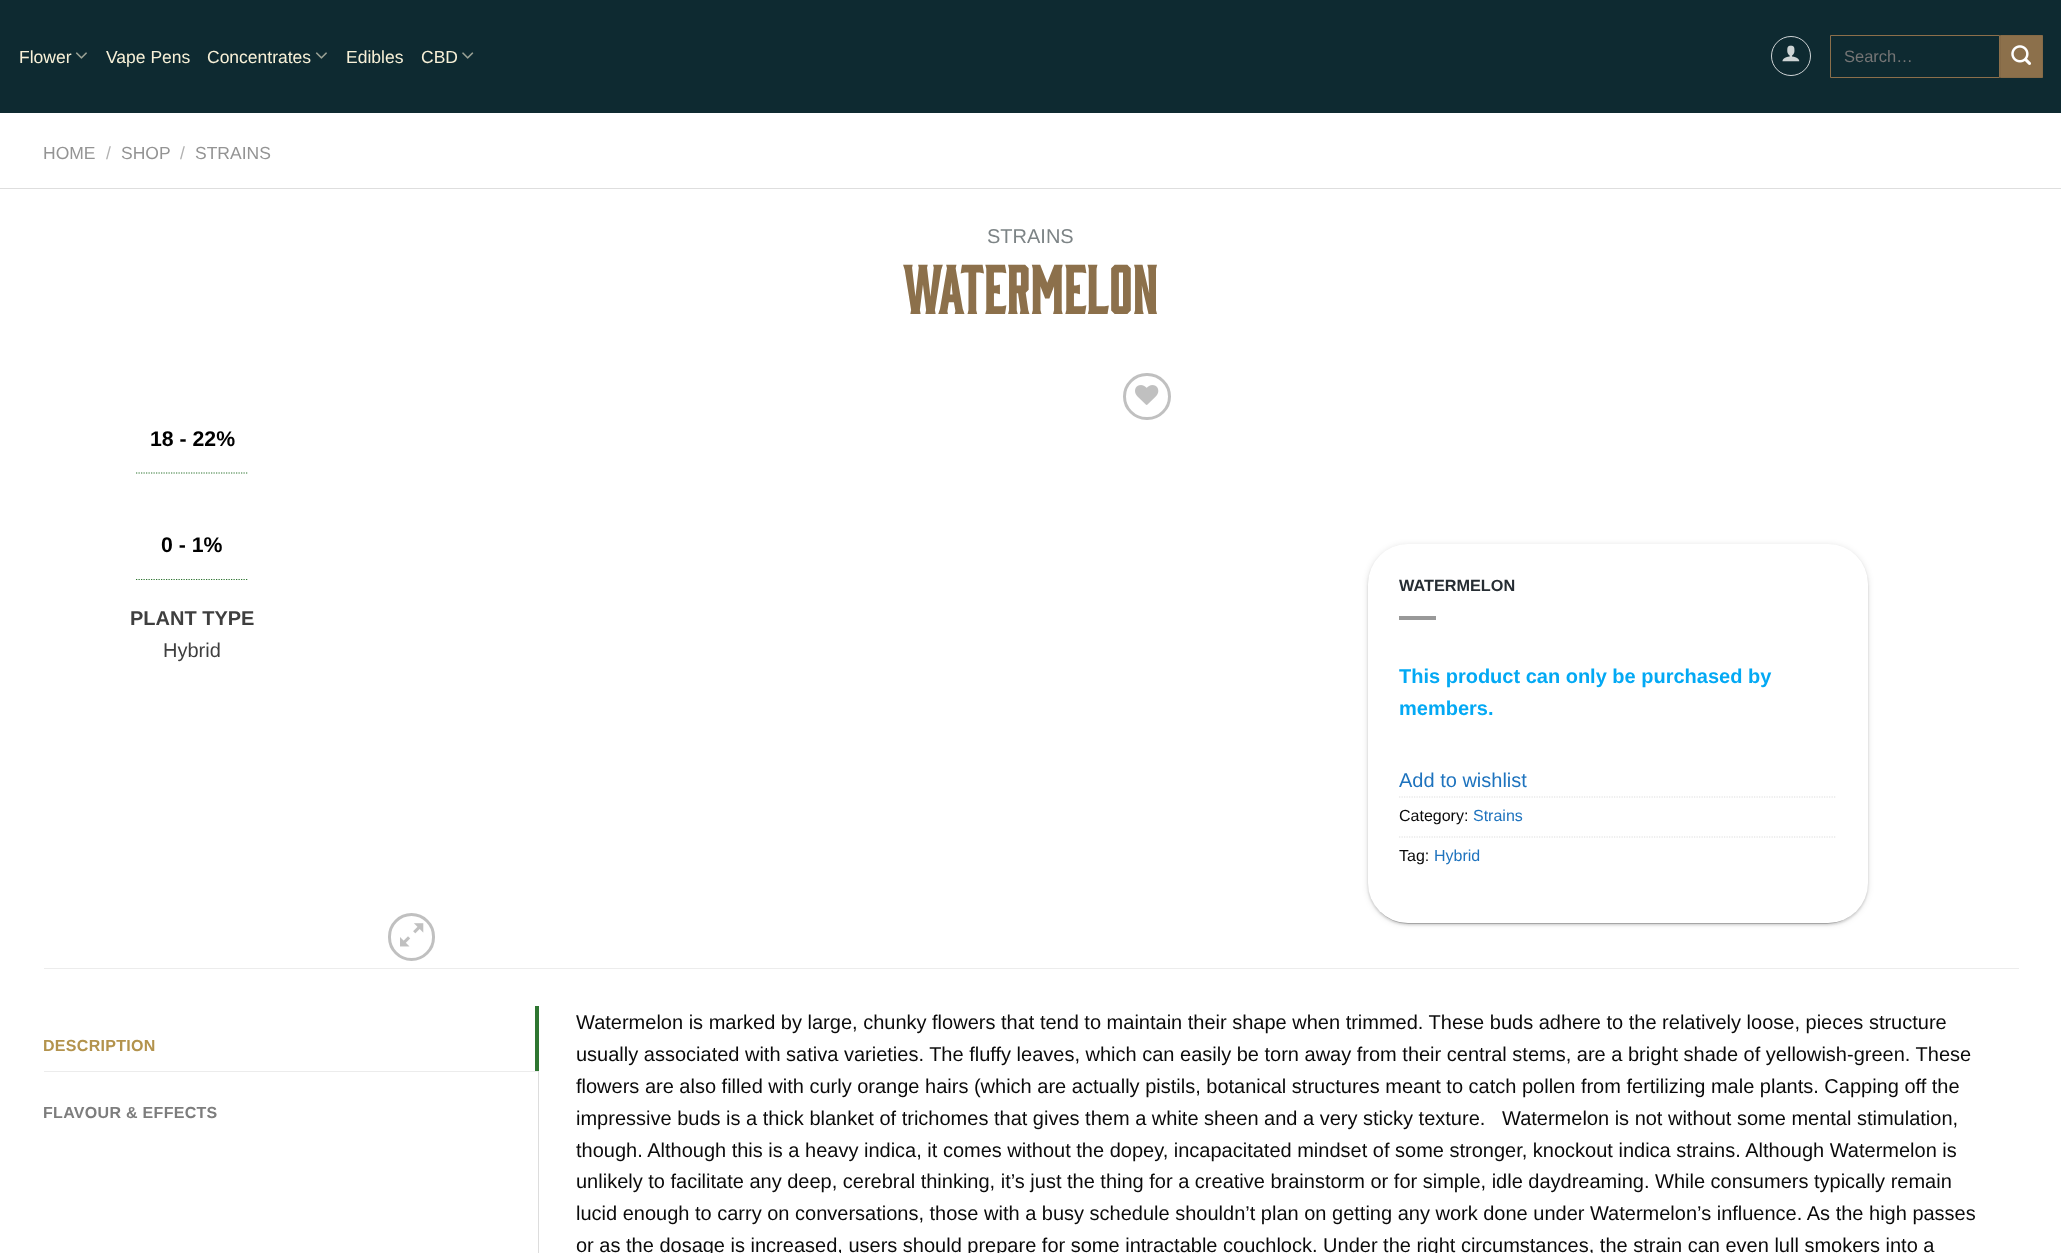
<svg xmlns="http://www.w3.org/2000/svg" width="2061" height="1253">
<style>
.a{font:17.5px Liberation Sans;fill:#f8f1d8}
.b{font:16.5px Liberation Sans;fill:#757575}
.c{font:17.5px Liberation Sans;fill:#949494}
.d{font:17.5px Liberation Sans;fill:#b2b2b2}
.e{font:20px Liberation Sans;fill:#7d8486}
.f{font:bold 62.5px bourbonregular;letter-spacing:1.25px;fill:#8c704b}
.g{font:bold 21.25px Liberation Sans;fill:#000}
.h{font:bold 20px Liberation Sans;fill:#3f3f3f}
.i{font:20px Liberation Sans;fill:#3f3f3f}
.j{font:bold 16.25px Liberation Sans;fill:#262d33}
.k{font:bold 20px Liberation Sans;fill:#03a9f4}
.l{font:20px Liberation Sans;fill:#1e73be}
.m{font:16px Liberation Sans;fill:#0a0a0a}
.n{font:16px Liberation Sans;fill:#1e73be}
.o{font:bold 16px Liberation Sans;letter-spacing:0.3px;fill:#b3934d}
.p{font:bold 16px Liberation Sans;letter-spacing:0.3px;fill:#7d7d7d}
.q{font:20px Liberation Sans;fill:#0a0a0a}
</style>
<rect width="100%" height="100%" fill="#fff"/>
<path fill="#0e2a31" d="M0 0h2061v113H0z"/>
<image href="1.png" x="75" y="52" width="12" height="7"/>
<image href="1.png" x="315" y="52" width="12" height="7"/>
<image href="2.png" x="462" y="52" width="12" height="7"/>
<circle fill="none" stroke="#cfd4d6" cx="1791" cy="56" r="19.5"/>
<image href="3.png" x="1782" y="45" width="18" height="17"/>
<path fill="none" stroke="#8c6f4b" d="M1830.5 35.5h169v42H1830.5z"/>
<path fill="#8c704b" stroke="#856a47" d="M2000.5 35.5h42v42H2000.5z"/>
<image href="4.png" x="2011" y="45" width="20" height="20"/>
<path fill="#dedede" d="M0 188h2061v1H0z"/>
<path fill="none" stroke="#2e7531" stroke-width="1.2" stroke-dasharray="1.25 1.25" d="M136 473h111.5"/>
<path fill="none" stroke="#2e7531" stroke-width="1.2" stroke-dasharray="1.25 1.25" d="M136 579.5h111.5"/>
<rect fill="none" stroke="#c0c0c0" stroke-width="3" x="1124.5" y="374.5" width="45" height="44" rx="22"/>
<image href="5.png" x="1135" y="385" width="24" height="20"/>
<rect fill="none" stroke="#c0c0c0" stroke-width="3" x="389.5" y="914.5" width="44" height="45" rx="22"/>
<image href="6.png" x="400" y="923" width="24" height="24"/>
<rect fill="#0000001f" filter="blur(3px)" x="1368" y="545" width="500" height="379" rx="40"/>
<rect fill="#00000033" filter="blur(0.5px)" x="1370" y="550" width="495" height="374" rx="38"/>
<rect fill="#00000024" filter="blur(1px)" x="1368" y="546" width="500" height="379" rx="40"/>
<rect fill="#fff" x="1368" y="544" width="500" height="379" rx="40"/>
<path fill="#999" d="M1399 616h37v4H1399z"/>
<path fill="none" stroke="#ddd" stroke-width="1.2" stroke-dasharray="1.25 1.25" d="M1399 797h437"/>
<path fill="none" stroke="#ddd" stroke-width="1.2" stroke-dasharray="1.25 1.25" d="M1399 837h437"/>
<path fill="#ececec" d="M44 968h1975v1H44z"/>
<path fill="#2e7631" d="M535 1006h4v65H535z"/>
<path fill="#ececec" d="M44 1071h494v1H44z"/>
<path fill="#ddd" d="M538 1071h1v182H538z"/>
<text class="a" x="19" y="63">Flower</text>
<text class="a" x="106" y="63">Vape Pens</text>
<text class="a" x="207" y="63">Concentrates</text>
<text class="a" x="346" y="63">Edibles</text>
<text class="a" x="421" y="63">CBD</text>
<text class="b" x="1844" y="62">Search…</text>
<text class="c" x="43" y="159">HOME</text>
<text class="d" x="106" y="159">/</text>
<text class="c" x="121" y="159">SHOP</text>
<text class="d" x="180" y="159">/</text>
<text class="c" x="195" y="159">STRAINS</text>
<text class="e" x="987" y="243">STRAINS</text>
<text class="f" x="903" y="314">Watermelon</text>
<text class="g" x="150" y="446">18 - 22%</text>
<text class="g" x="161" y="552">0 - 1%</text>
<text class="h" x="130" y="625">PLANT TYPE</text>
<text class="i" x="163" y="657">Hybrid</text>
<text class="j" x="1399" y="591">WATERMELON</text>
<text class="k" x="1399" y="683">This product can only be purchased by</text>
<text class="k" x="1399" y="715">members.</text>
<text class="l" x="1399" y="787">Add to wishlist</text>
<text class="m" x="1399" y="821">Category:</text>
<text class="n" x="1473" y="821">Strains</text>
<text class="m" x="1399" y="861">Tag:</text>
<text class="n" x="1434" y="861">Hybrid</text>
<text class="o" x="43" y="1051">DESCRIPTION</text>
<text class="p" x="43" y="1118">FLAVOUR &amp; EFFECTS</text>
<text class="q" x="576" y="1029">Watermelon is marked by large, chunky flowers that tend to maintain their shape when trimmed. These buds adhere to the relatively loose, pieces structure</text>
<text class="q" x="576" y="1061">usually associated with sativa varieties. The fluffy leaves, which can easily be torn away from their central stems, are a bright shade of yellowish-green. These</text>
<text class="q" x="576" y="1093">flowers are also filled with curly orange hairs (which are actually pistils, botanical structures meant to catch pollen from fertilizing male plants. Capping off the</text>
<text class="q" x="576" y="1125">impressive buds is a thick blanket of trichomes that gives them a white sheen and a very sticky texture.</text>
<text class="q" x="1502" y="1125">Watermelon is not without some mental stimulation,</text>
<text class="q" x="576" y="1157">though. Although this is a heavy indica, it comes without the dopey, incapacitated mindset of some stronger, knockout indica strains. Although Watermelon is</text>
<text class="q" x="576" y="1188">unlikely to facilitate any deep, cerebral thinking, it’s just the thing for a creative brainstorm or for simple, idle daydreaming. While consumers typically remain</text>
<text class="q" x="576" y="1220">lucid enough to carry on conversations, those with a busy schedule shouldn’t plan on getting any work done under Watermelon’s influence. As the high passes</text>
<text class="q" x="576" y="1252">or as the dosage is increased, users should prepare for some intractable couchlock. Under the right circumstances, the strain can even lull smokers into a</text>
</svg>
